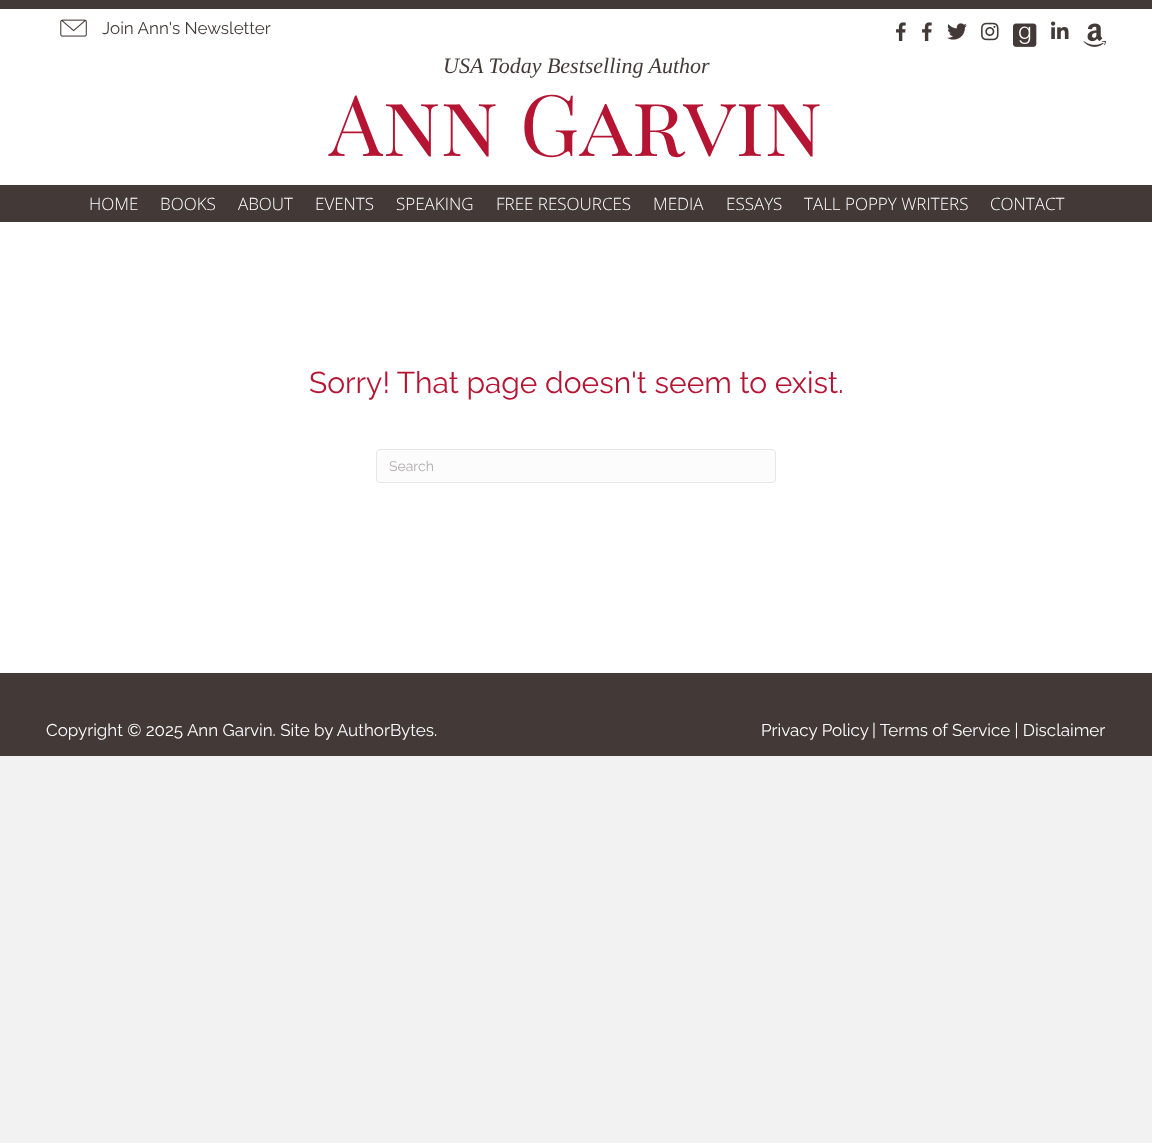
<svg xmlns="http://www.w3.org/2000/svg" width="1152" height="1143">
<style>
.a{font:100 17px Raleway;fill:#433a38}
.b{font:italic 22px Liberation Serif;fill:#433a38}
.c{font:85px Playfair Display SC;fill:#b51433}
.d{font:300 17px Open Sans;fill:#fff}
.e{font:100 30px Raleway;fill:#b51433}
.f{font:100 14px Raleway;fill:#b2aeae}
.g{font:100 17px Raleway;fill:#fff}
</style>
<rect width="100%" height="100%" fill="#f2f2f2"/>
<path fill="#433a38" d="M0 0h1152v9H0z"/>
<path fill="#fff" d="M0 9h1152v176H0z"/>
<image href="1.png" x="60" y="19" width="27" height="18"/>
<image href="2.png" x="896" y="22" width="10" height="19"/>
<image href="2.png" x="922" y="22" width="10" height="19"/>
<image href="3.png" x="947" y="23" width="20" height="17"/>
<image href="4.png" x="981" y="22" width="18" height="19"/>
<image href="5.png" x="1013" y="23" width="24" height="24"/>
<image href="6.png" x="1051" y="21" width="18" height="18"/>
<image href="7.png" x="1083" y="23" width="23" height="24"/>
<path fill="#433a38" d="M0 185h1152v37H0z"/>
<path fill="#fff" d="M0 222h1152v451H0z"/>
<rect fill="#fcfcfc" stroke="#e6e6e6" x="376.5" y="449.5" width="399" height="33" rx="3.5"/>
<path fill="#433a38" d="M0 673h1152v83H0z"/>
<text class="a" x="102" y="34">Join Ann's Newsletter</text>
<text class="b" x="443" y="73">USA Today Bestselling Author</text>
<text class="c" x="329" y="156">Ann Garvin</text>
<text class="d" x="89" y="210">HOME</text>
<text class="d" x="160" y="210">BOOKS</text>
<text class="d" x="238" y="210">ABOUT</text>
<text class="d" x="315" y="210">EVENTS</text>
<text class="d" x="396" y="210">SPEAKING</text>
<text class="d" x="496" y="210">FREE RESOURCES</text>
<text class="d" x="653" y="210">MEDIA</text>
<text class="d" x="726" y="210">ESSAYS</text>
<text class="d" x="804" y="210">TALL POPPY WRITERS</text>
<text class="d" x="990" y="210">CONTACT</text>
<text class="e" x="309" y="393">Sorry! That page doesn't seem to exist.</text>
<text class="f" x="389" y="471">Search</text>
<text class="g" x="46" y="736">Copyright © 2025 Ann Garvin. Site by AuthorBytes.</text>
<text class="g" x="761" y="736">Privacy Policy</text>
<text class="g" x="872" y="736">| Terms of Service | Disclaimer</text>
</svg>
